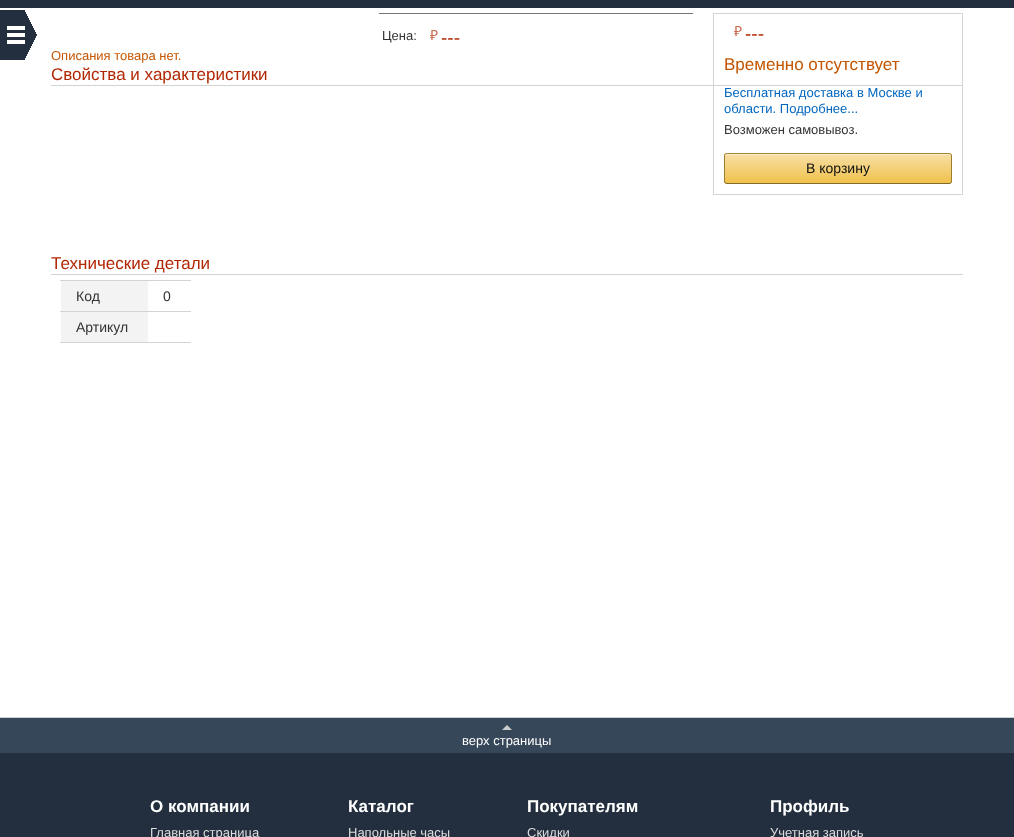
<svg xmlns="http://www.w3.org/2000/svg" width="1014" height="837">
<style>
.a{font:13px Liberation Sans;fill:#333}
.b{font:14px Noto Sans;fill:#c8684f}
.c{font:19px Liberation Sans;fill:#b12704}
.d{font:17px Liberation Sans;fill:#c45500}
.e{font:13px Liberation Sans;fill:#0066c0}
.f{font:14px Liberation Sans;fill:#111}
.g{font:13px Liberation Sans;fill:#c45500}
.h{font:17px Liberation Sans;fill:#b12704}
.i{font:14px Liberation Sans;fill:#333}
.j{font:13px Liberation Sans;fill:#fff}
.k{font:bold 17px Liberation Sans;fill:#fff}
.l{font:13px Liberation Sans;fill:#ddd}
</style>
<defs>
<clipPath id="clip1"><rect x="724" y="153" width="228" height="31" rx="3"/></clipPath>
<linearGradient id="g1" gradientUnits="userSpaceOnUse" x1="838" y1="154" x2="838" y2="183"><stop offset="0" stop-color="#f7dfa5"/><stop offset="1" stop-color="#f0c14b"/></linearGradient>
</defs>
<rect width="100%" height="100%" fill="#fff"/>
<path fill="#232f3e" d="M0 0h1014v8H0z"/>
<image href="1.png" x="0" y="10" width="37" height="50"/>
<path fill="#767676" d="M379 13h314v1H379z"/>
<path fill="#d3d3d3" d="M51 85h912v1H51z"/>
<path fill="none" stroke="#d3d3d3" d="M713.5 13.5h249v181H713.5z"/>
<g clip-path="url(#clip1)">
<path fill="url(#g1)" d="M724 154h228v29H724z"/>
</g>
<path fill="#ffffff66" d="M727 155h222c1 0 2 1 2 2c0-1 0-3-2-3h-223c-1 1-1 2-1 3c0-1 1-2 2-2z"/>
<path fill="none" stroke="#a88734" d="M725 154l2-.5h222l2 .5"/>
<path fill="none" stroke="#9c7e31" d="M951 154c0 .5 .5 1.5 .5 2v25c0 .5-.5 1.5-.5 2"/>
<path fill="none" stroke="#846a29" d="M951 183l-2 .5h-222l-2-.5"/>
<path fill="none" stroke="#9c7e31" d="M725 183c0-.5-.5-1.5-.5-2v-25c0-.5 .5-1.5 .5-2"/>
<path fill="#d3d3d3" d="M51 274h912v1H51z"/>
<path fill="#d3d3d3" d="M60 280h131v1H60z"/>
<path fill="#d3d3d3" d="M60 311h131v1H60z"/>
<path fill="#f3f3f3" d="M61 281h87v30H61z"/>
<path fill="#d3d3d3" d="M60 342h131v1H60z"/>
<path fill="#f3f3f3" d="M61 312h87v30H61z"/>
<path fill="#d0d0d0" d="M0 717h1014v1H0z"/>
<path fill="#37475a" d="M0 718h1014v35H0z"/>
<path fill="#ccc" d="M512 730h-10l5-5z"/>
<path fill="#232f3e" d="M0 753h1014v84H0z"/>
<text class="a" x="382" y="40">Цена:</text>
<text class="b" x="430" y="40">₽</text>
<text class="c" x="441" y="44">---</text>
<text class="b" x="734" y="36">₽</text>
<text class="c" x="745" y="40">---</text>
<text class="d" x="724" y="70">Временно отсутствует</text>
<text class="e" x="724" y="97">Бесплатная доставка в Москве и</text>
<text class="e" x="724" y="113">области. Подробнее...</text>
<text class="a" x="724" y="134">Возможен самовывоз.</text>
<text class="f" x="806" y="173">В корзину</text>
<text class="g" x="51" y="60">Описания товара нет.</text>
<text class="h" x="51" y="80">Свойства и характеристики</text>
<text class="h" x="51" y="269">Технические детали</text>
<text class="i" x="76" y="301">Код</text>
<text class="i" x="163" y="301">0</text>
<text class="i" x="76" y="332">Артикул</text>
<text class="j" x="462" y="745">верх страницы</text>
<text class="k" x="150" y="812">О компании</text>
<text class="l" x="150" y="837">Главная страница</text>
<text class="k" x="348" y="812">Каталог</text>
<text class="l" x="348" y="837">Напольные часы</text>
<text class="k" x="527" y="812">Покупателям</text>
<text class="l" x="527" y="837">Скидки</text>
<text class="k" x="770" y="812">Профиль</text>
<text class="l" x="770" y="837">Учетная запись</text>
</svg>
